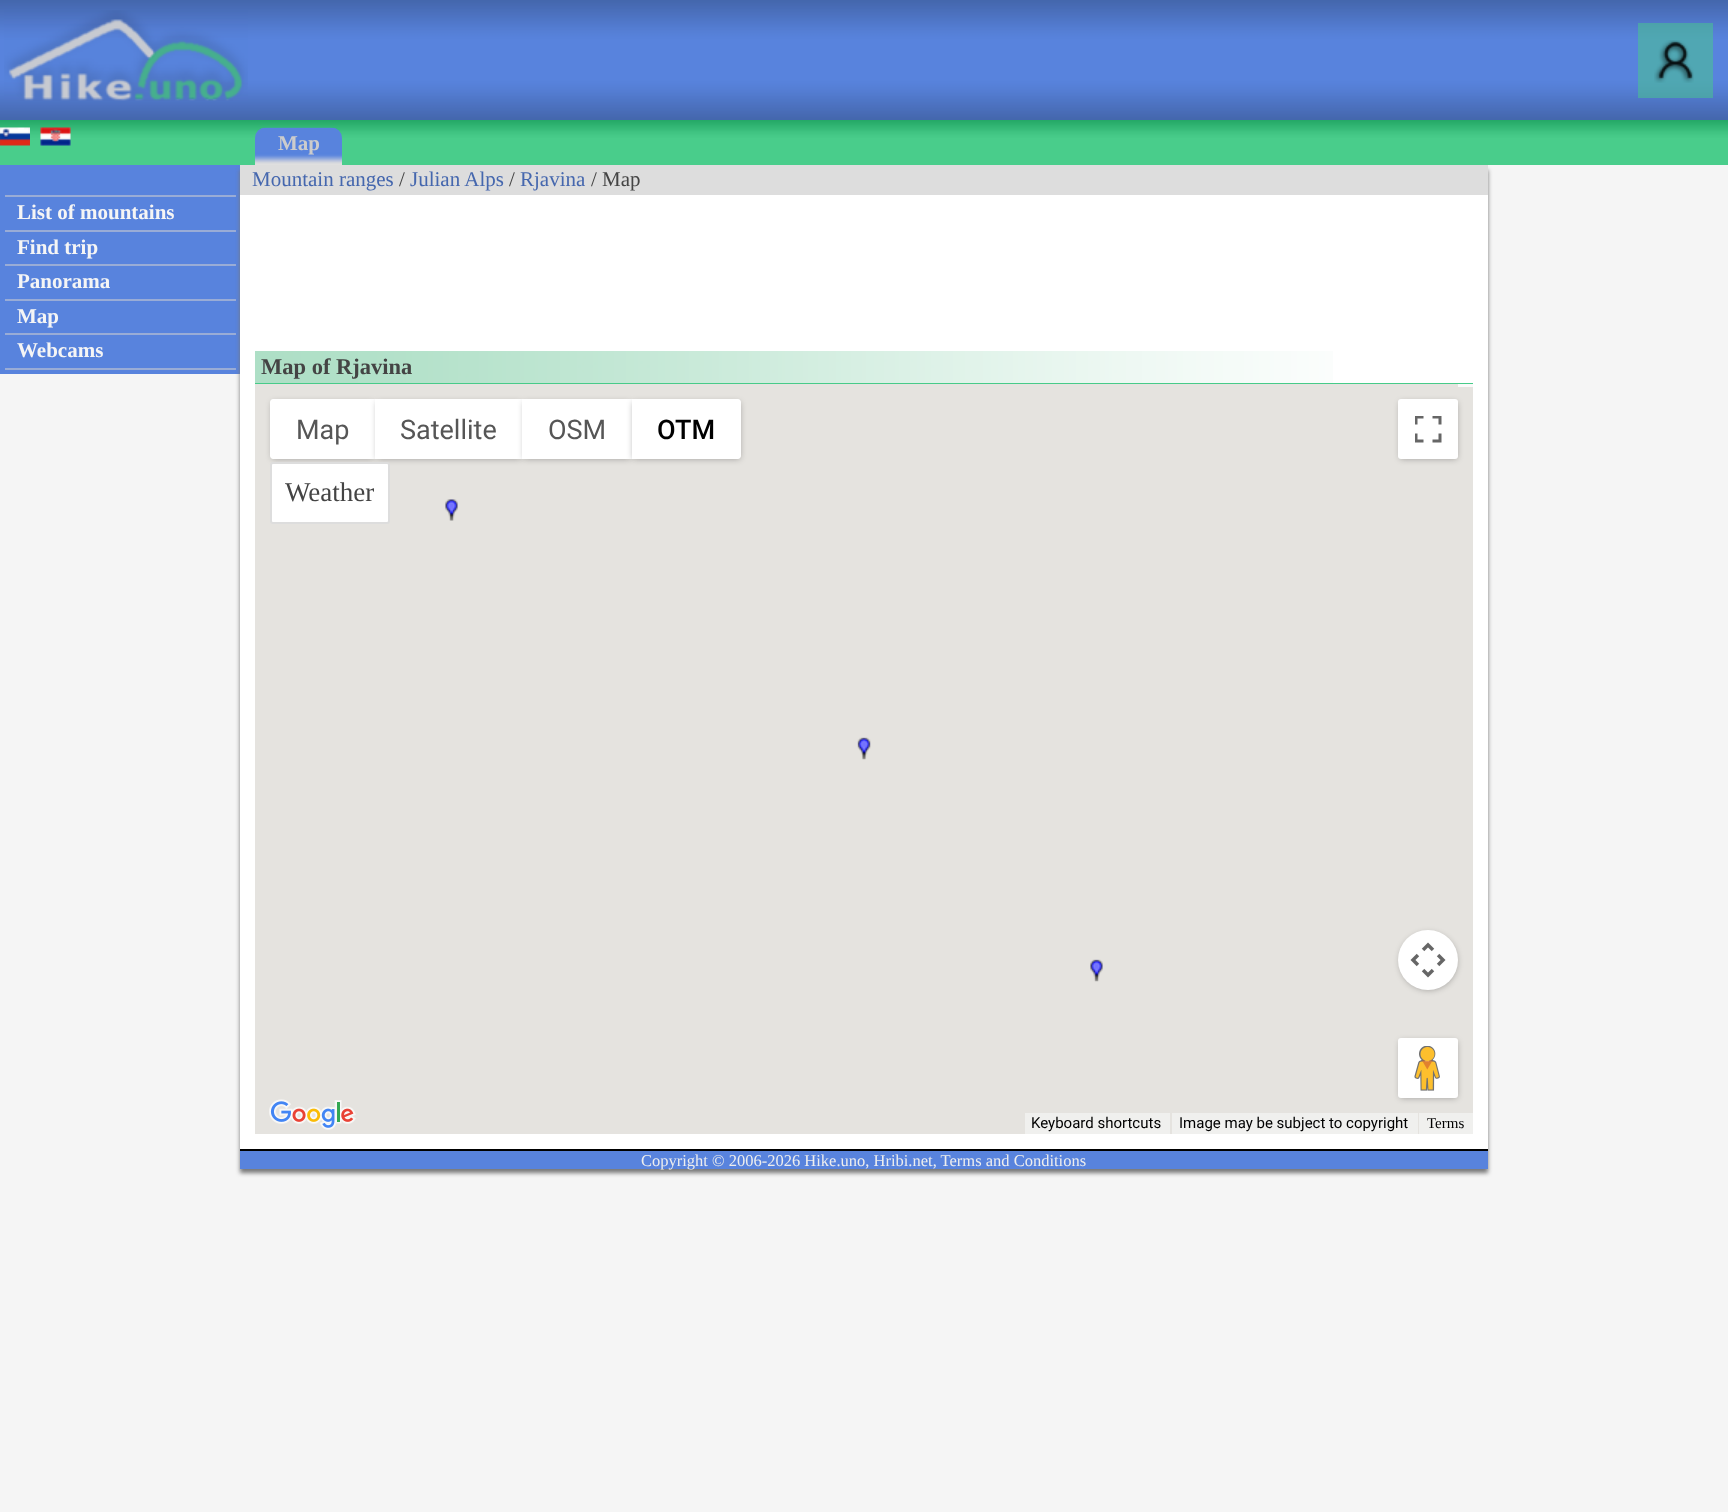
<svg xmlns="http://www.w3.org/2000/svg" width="1728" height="1512">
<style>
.a{font:bold 21px Liberation Serif;fill:#ccc}
.b{font:bold 21px Liberation Serif;fill:#f5f5f5}
.c{font:21px Liberation Serif;fill:#4567ae}
.d{font:21px Liberation Serif;fill:#444}
.e{font:bold 22.5px Liberation Serif;fill:#444}
.f{font:27px Roboto;fill:#565656}
.g{font:500 27px Roboto;fill:#000}
.h{font:15px Roboto;fill:#000}
.i{font:15px Liberation Serif;fill:#000}
.j{font:27px Liberation Serif;fill:#444}
.k{font:16.5px Liberation Serif;fill:#eee}
</style>
<rect width="100%" height="100%" fill="#f5f5f5"/>
<image href="1.png" x="0" y="0" width="1728" height="120"/>
<image href="2.png" x="4" y="10" width="244" height="91"/>
<path fill="#47cb8980" d="M1638 23h75v75H1638z"/>
<image href="3.png" x="1654" y="40" width="40" height="43"/>
<image href="4.png" x="0" y="120" width="1728" height="45"/>
<image href="5.png" x="0" y="127" width="30" height="19"/>
<image href="6.png" x="40" y="127" width="31" height="19"/>
<image href="7.png" x="255" y="127" width="87" height="38"/>
<path fill="#5883dd" d="M0 165h240v209H0z"/>
<path fill="#99acd6" d="M5 195h231v2H5z"/>
<path fill="#99acd6" d="M5 230h231v2H5z"/>
<path fill="#99acd6" d="M5 264h231v2H5z"/>
<path fill="#99acd6" d="M5 299h231v2H5z"/>
<path fill="#99acd6" d="M5 333h231v2H5z"/>
<path fill="#99acd6" d="M5 368h231v2H5z"/>
<path fill="#777" filter="blur(2px)" d="M240 170h1248v1003H240z"/>
<path fill="#fff" d="M240 195h1248v954H240z"/>
<path fill="#ddd" d="M240 165h1248v30H240z"/>
<image href="8.png" x="255" y="351" width="1078" height="32"/>
<path fill="#47cb89" d="M255 383h1218v1H255z"/>
<path fill="#e5e3df" d="M255 384h1218v750H255z"/>
<path fill="#faf9f9" d="M1458 384h15v3H1458z"/>
<rect fill="#0000004d" filter="blur(3px)" x="272" y="402" width="102" height="57" rx="1.5"/>
<path fill="#fff" d="M273 399h102v60h-102c-1.5 0-3-1.5-3-3v-54c0-1.5 1.5-3 3-3z"/>
<path fill="#0000004d" filter="blur(3px)" d="M377 402h144v57H377z"/>
<path fill="#fff" d="M375 399h147v60H375z"/>
<path fill="#0000004d" filter="blur(3px)" d="M524 402h106v57H524z"/>
<path fill="#fff" d="M522 399h110v60H522z"/>
<rect fill="#0000004d" filter="blur(3px)" x="633" y="402" width="107" height="57" rx="1.5"/>
<path fill="#fff" d="M632 399h106c1.5 0 3 1.5 3 3v54c0 1.5-1.5 3-3 3h-106z"/>
<rect fill="#0000004d" filter="blur(3px)" x="1400" y="402" width="57" height="57" rx="1.5"/>
<rect fill="#fff" x="1398" y="399" width="60" height="60" rx="3"/>
<image href="9.png" x="1415" y="416" width="27" height="27"/>
<image href="10.png" x="445" y="499" width="13" height="22"/>
<image href="11.png" x="857" y="737" width="14" height="23"/>
<image href="12.png" x="1090" y="959" width="13" height="23"/>
<rect fill="#0000004d" filter="blur(3px)" x="1400" y="933" width="57" height="57" rx="28.5"/>
<circle fill="#fff" cx="1428" cy="960" r="30"/>
<image href="13.png" x="1410" y="942" width="36" height="36"/>
<rect fill="#0000004d" filter="blur(3px)" x="1400" y="1041" width="57" height="57" rx="1.5"/>
<rect fill="#fff" x="1398" y="1038" width="60" height="60" rx="3"/>
<image href="14.png" x="1414" y="1046" width="26" height="45"/>
<image href="15.png" x="269" y="1099" width="87" height="31"/>
<path fill="#f0f0ee" d="M1025 1113h145v21H1025z"/>
<path fill="#f0f0ee" d="M1172 1113h246v21H1172z"/>
<path fill="#f0f0ee" d="M1419 1113h54v21H1419z"/>
<rect fill="#fff" stroke="#ddd" stroke-width="2" x="271" y="463" width="118" height="60" rx="2"/>
<path fill="#5883dd" d="M240 1151h1248v18H240z"/>
<path fill="#000" d="M240 1149h1248v2H240z"/>
<text class="a" x="278" y="150">Map</text>
<text class="b" x="17" y="219">List of mountains</text>
<text class="b" x="17" y="254">Find trip</text>
<text class="b" x="17" y="288">Panorama</text>
<text class="b" x="17" y="323">Map</text>
<text class="b" x="17" y="357">Webcams</text>
<text class="c" x="252" y="186">Mountain ranges</text>
<text class="d" x="399" y="186">/</text>
<text class="c" x="410" y="186">Julian Alps</text>
<text class="d" x="509" y="186">/</text>
<text class="c" x="520" y="186">Rjavina</text>
<text class="d" x="591" y="186">/ Map</text>
<text class="e" x="261" y="374">Map of Rjavina</text>
<text class="f" x="296" y="439">Map</text>
<text class="f" x="400" y="439">Satellite</text>
<text class="f" x="548" y="439">OSM</text>
<text class="g" x="657" y="439">OTM</text>
<text class="h" x="1031" y="1128">Keyboard shortcuts</text>
<text class="h" x="1179" y="1128">Image may be subject to copyright</text>
<text class="i" x="1427" y="1128">Terms</text>
<text class="j" x="285" y="501">Weather</text>
<text class="k" x="641" y="1166">Copyright © 2006-2026 Hike.uno, Hribi.net, Terms and Conditions</text>
</svg>
